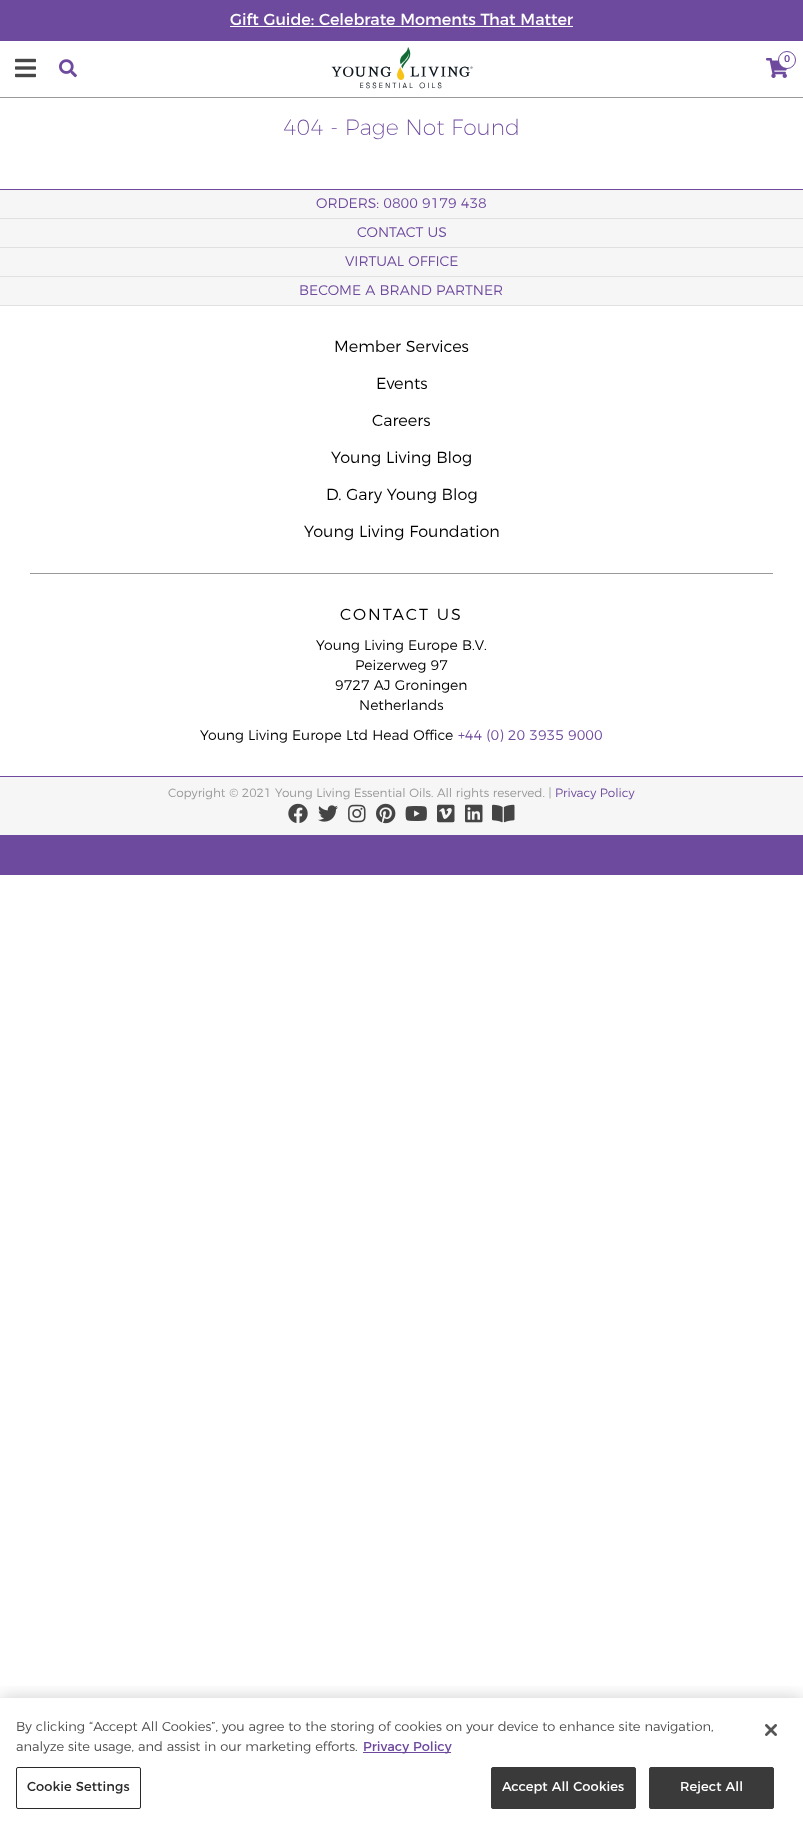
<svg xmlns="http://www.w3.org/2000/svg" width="803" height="1822">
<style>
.a{font:16px Montserrat;fill:#fff}
.b{font:500 10px Montserrat;fill:#6e4a9e}
.c{font:200 22px Montserrat;fill:#6e4a9e}
.d{font:300 14px Montserrat;fill:#6e4a9e}
.e{font:300 16px Montserrat;fill:#000}
.f{font:300 16px Montserrat;letter-spacing:2px;fill:#000}
.g{font:300 14px Montserrat;fill:#000}
.h{font:300 12px Montserrat;fill:#999}
.i{font:300 12px Montserrat;fill:#6e4a9e}
.j{font:300 13px Montserrat;fill:#4d4d4d}
.k{font:13px Montserrat;fill:#6e4a9e}
.l{font:13px Montserrat;letter-spacing:0.1px;fill:#292929}
.m{font:13px Montserrat;letter-spacing:0.1px;fill:#fff}
</style>
<defs>
<clipPath id="clip1"><path d="M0 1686h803v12H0z"/></clipPath>
</defs>
<rect width="100%" height="100%" fill="#fff"/>
<path fill="#6e4a9e" d="M0 0h803v41H0z"/>
<path fill="#fff" d="M230 26h343v1H230z"/>
<path fill="#999" d="M0 97h803v1H0z"/>
<image href="1.png" x="15" y="58" width="21" height="20"/>
<image href="2.png" x="59" y="59" width="18" height="19"/>
<image href="3.png" x="331" y="47" width="142" height="42"/>
<image href="4.png" x="766" y="58" width="21" height="20"/>
<circle fill="#fff" stroke="#6e4a9e" cx="787" cy="60" r="8.5"/>
<path fill="#6e4a9e" d="M0 189h803v1H0z"/>
<path fill="#f6f6f6" d="M0 190h803v115H0z"/>
<path fill="#e0e0e0" d="M0 218h803v1H0z"/>
<path fill="#e0e0e0" d="M0 247h803v1H0z"/>
<path fill="#e0e0e0" d="M0 276h803v1H0z"/>
<path fill="#e0e0e0" d="M0 305h803v1H0z"/>
<path fill="#999" d="M30 573h743v1H30z"/>
<path fill="#f6f6f6" d="M0 777h803v58H0z"/>
<path fill="#6e4a9e" d="M0 776h803v1H0z"/>
<image href="5.png" x="288" y="803" width="20" height="20"/>
<image href="6.png" x="318" y="805" width="20" height="17"/>
<image href="7.png" x="348" y="804" width="18" height="19"/>
<image href="8.png" x="376" y="803" width="20" height="21"/>
<image href="9.png" x="405" y="806" width="22" height="15"/>
<image href="10.png" x="437" y="804" width="18" height="19"/>
<image href="11.png" x="465" y="804" width="18" height="19"/>
<image href="12.png" x="492" y="804" width="23" height="19"/>
<path fill="#6e4a9e" d="M0 835h803v40H0z"/>
<g clip-path="url(#clip1)">
<path fill="#00000033" filter="blur(9px)" d="M0 1698h803v124H0z"/>
</g>
<path fill="#6e4a9e" d="M363 1752h88v1H363z"/>
<rect fill="none" stroke="#292929" x="16.5" y="1767.5" width="124" height="41" rx="1.5"/>
<rect fill="#3a3a3a" stroke="#3a3a3a" x="491.5" y="1767.5" width="144" height="41" rx="1.5"/>
<rect fill="#3a3a3a" stroke="#3a3a3a" x="649.5" y="1767.5" width="124" height="41" rx="1.5"/>
<image href="13.png" x="765" y="1724" width="12" height="12"/>
<text class="a" x="230" y="25">Gift Guide: Celebrate Moments That Matter</text>
<text class="b" x="784" y="62">0</text>
<text class="c" x="283" y="135">404 - Page Not Found</text>
<text class="d" x="316" y="208">ORDERS: 0800 9179 438</text>
<text class="d" x="357" y="237">CONTACT US</text>
<text class="d" x="345" y="266">VIRTUAL OFFICE</text>
<text class="d" x="299" y="295">BECOME A BRAND PARTNER</text>
<text class="e" x="334" y="352">Member Services</text>
<text class="e" x="376" y="389">Events</text>
<text class="e" x="372" y="426">Careers</text>
<text class="e" x="331" y="463">Young Living Blog</text>
<text class="e" x="326" y="500">D. Gary Young Blog</text>
<text class="e" x="304" y="537">Young Living Foundation</text>
<text class="f" x="340" y="620">CONTACT US</text>
<text class="g" x="316" y="650">Young Living Europe B.V.</text>
<text class="g" x="355" y="670">Peizerweg 97</text>
<text class="g" x="335" y="690">9727 AJ Groningen</text>
<text class="g" x="359" y="710">Netherlands</text>
<text class="g" x="200" y="740">Young Living Europe Ltd Head Office</text>
<text class="d" x="458" y="740">+44 (0) 20 3935 9000</text>
<text class="h" x="168" y="797">Copyright © 2021 Young Living Essential Oils. All rights reserved. |</text>
<text class="i" x="555" y="797">Privacy Policy</text>
<text class="j" x="16" y="1731">By clicking “Accept All Cookies”, you agree to the storing of cookies on your device to enhance site navigation,</text>
<text class="j" x="16" y="1751">analyze site usage, and assist in our marketing efforts.</text>
<text class="k" x="363" y="1751">Privacy Policy</text>
<text class="l" x="27" y="1791">Cookie Settings</text>
<text class="m" x="502" y="1791">Accept All Cookies</text>
<text class="m" x="680" y="1791">Reject All</text>
</svg>
